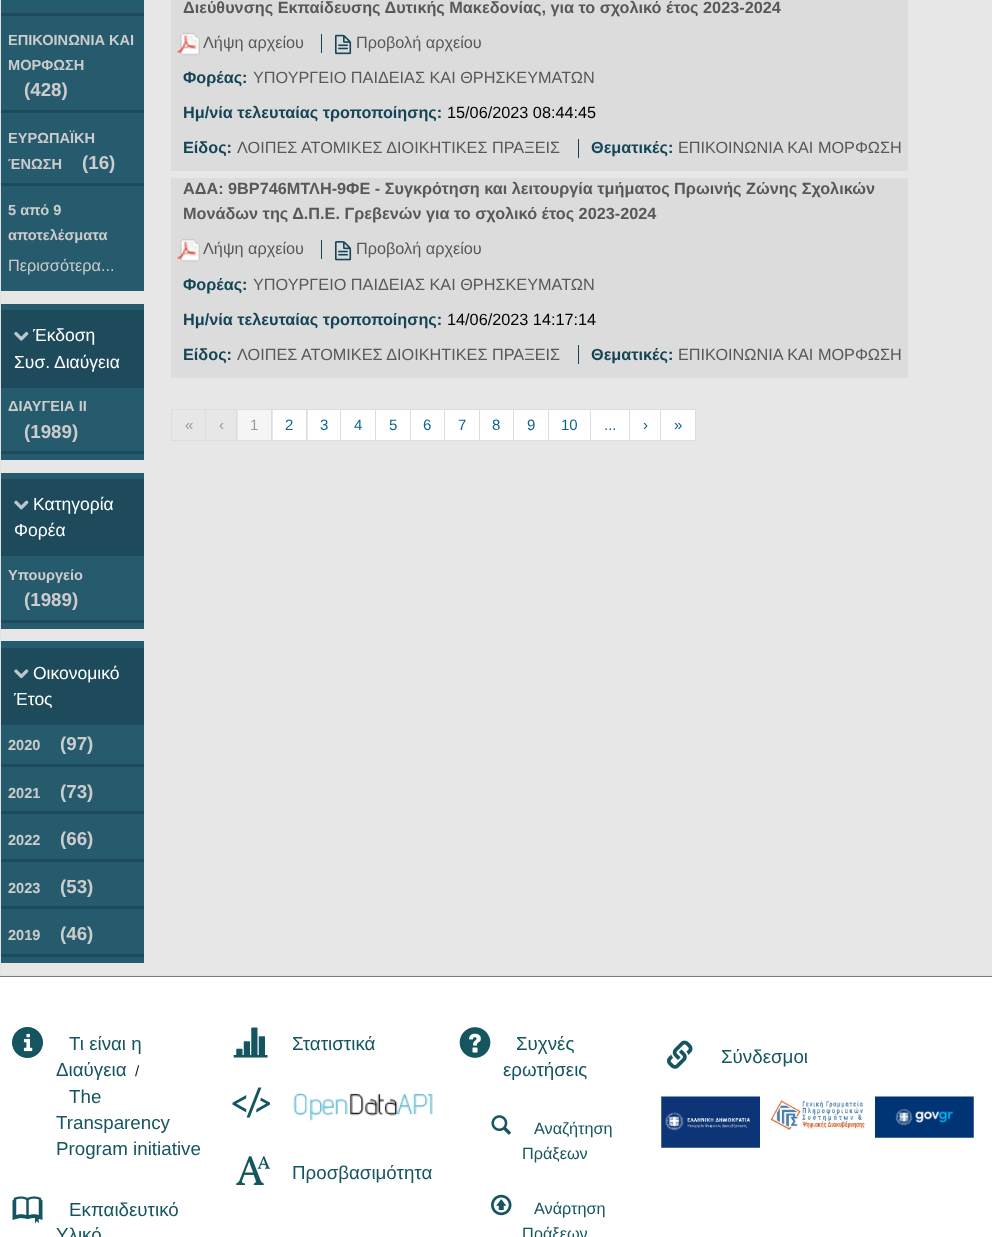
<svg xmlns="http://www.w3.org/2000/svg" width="992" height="1237">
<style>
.a{font:bold 14.6px Liberation Sans;fill:#ccc}
.b{font:bold 18.75px Liberation Sans;fill:#ccc}
.c{font:16.25px Liberation Sans;fill:#ccc}
.d{font:17.5px Liberation Sans;fill:#fff}
.e{font:bold 16.25px Liberation Sans;fill:#585858}
.f{font:16.25px Liberation Sans;fill:#585858}
.g{font:bold 16.25px Liberation Sans;fill:#144556}
.h{font:16.25px Liberation Sans;fill:#000}
.i{font:15px Liberation Sans;fill:#999}
.j{font:15px Liberation Sans;fill:#0d638f}
.k{font:18.75px Liberation Sans;fill:#14555f}
.l{font:15px Liberation Sans;fill:#1d1d1b}
.m{font:16.25px Liberation Sans;fill:#14555f}
</style>
<rect width="100%" height="100%" fill="#e7e7e7"/>
<path fill="#e2e2e2" d="M0 975h992v1H0z"/>
<path fill="#e2e2e2" d="M0 0h1v976H0z"/>
<path fill="#265b6d" d="M1 0h143v291H1z"/>
<path fill="#1d4b5b" d="M1 13h143v3H1z"/>
<path fill="#1d4b5b" d="M1 110h143v3H1z"/>
<path fill="#1d4b5b" d="M1 183h143v3H1z"/>
<path fill="#265b6d" d="M1 304h143v156H1z"/>
<path fill="#1d4b5b" d="M1 310h143v78H1z"/>
<image href="1.png" x="14" y="331" width="15" height="10"/>
<path fill="#1d4b5b" d="M1 451h143v3H1z"/>
<path fill="#265b6d" d="M1 473h143v156H1z"/>
<path fill="#1d4b5b" d="M1 479h143v77H1z"/>
<image href="2.png" x="14" y="500" width="15" height="10"/>
<path fill="#1d4b5b" d="M1 620h143v3H1z"/>
<path fill="#265b6d" d="M1 641h143v322H1z"/>
<path fill="#1d4b5b" d="M1 648h143v77H1z"/>
<image href="3.png" x="14" y="669" width="15" height="10"/>
<path fill="#1d4b5b" d="M1 764h143v3H1z"/>
<path fill="#1d4b5b" d="M1 811h143v3H1z"/>
<path fill="#1d4b5b" d="M1 859h143v3H1z"/>
<path fill="#1d4b5b" d="M1 906h143v3H1z"/>
<path fill="#1d4b5b" d="M1 954h143v3H1z"/>
<path fill="#dcdcdc" d="M171 0h737v171H171z"/>
<image href="4.png" x="177" y="32" width="23" height="24"/>
<path fill="#144556" d="M321 34h1v19H321z"/>
<image href="5.png" x="335" y="34" width="17" height="21"/>
<path fill="#144556" d="M578 139h1v19H578z"/>
<path fill="#dcdcdc" d="M171 178h737v200H171z"/>
<image href="6.png" x="177" y="239" width="23" height="23"/>
<path fill="#144556" d="M321 240h1v19H321z"/>
<image href="7.png" x="335" y="241" width="17" height="20"/>
<path fill="#144556" d="M578 345h1v19H578z"/>
<path fill="none" stroke="#ddd" d="M171.5 409.5h34v31H171.5z"/>
<path fill="#ddd" d="M206 409h490v1H206z"/>
<path fill="#ddd" d="M236 409h1v32H236z"/>
<path fill="#ddd" d="M206 440h32v1H206z"/>
<path fill="#f5f5f5" d="M238 410h33v30H238z"/>
<path fill="#ddd" d="M271 409h1v32H271z"/>
<path fill="#ddd" d="M238 440h35v1H238z"/>
<path fill="#fff" d="M273 410h33v30H273z"/>
<path fill="#ddd" d="M306 409h1v32H306z"/>
<path fill="#ddd" d="M273 440h35v1H273z"/>
<path fill="#fff" d="M308 410h32v30H308z"/>
<path fill="#ddd" d="M340 409h1v32H340z"/>
<path fill="#ddd" d="M308 440h33v1H308z"/>
<path fill="#fff" d="M341 410h34v30H341z"/>
<path fill="#ddd" d="M375 409h1v32H375z"/>
<path fill="#ddd" d="M341 440h35v1H341z"/>
<path fill="#fff" d="M376 410h34v30H376z"/>
<path fill="#ddd" d="M410 409h1v32H410z"/>
<path fill="#ddd" d="M376 440h35v1H376z"/>
<path fill="#fff" d="M411 410h33v30H411z"/>
<path fill="#ddd" d="M444 409h1v32H444z"/>
<path fill="#ddd" d="M411 440h34v1H411z"/>
<path fill="#fff" d="M445 410h34v30H445z"/>
<path fill="#ddd" d="M479 409h1v32H479z"/>
<path fill="#ddd" d="M445 440h35v1H445z"/>
<path fill="#fff" d="M480 410h33v30H480z"/>
<path fill="#ddd" d="M513 409h1v32H513z"/>
<path fill="#ddd" d="M480 440h34v1H480z"/>
<path fill="#fff" d="M514 410h34v30H514z"/>
<path fill="#ddd" d="M548 409h1v32H548z"/>
<path fill="#ddd" d="M514 440h35v1H514z"/>
<path fill="#fff" d="M549 410h41v30H549z"/>
<path fill="#ddd" d="M590 409h1v32H590z"/>
<path fill="#ddd" d="M549 440h42v1H549z"/>
<path fill="#fff" d="M591 410h38v30H591z"/>
<path fill="#ddd" d="M629 409h1v32H629z"/>
<path fill="#ddd" d="M591 440h39v1H591z"/>
<path fill="#fff" d="M630 410h30v30H630z"/>
<path fill="#ddd" d="M660 409h1v32H660z"/>
<path fill="#ddd" d="M630 440h31v1H630z"/>
<path fill="#fff" d="M661 410h34v30H661z"/>
<path fill="#ddd" d="M695 409h1v32H695z"/>
<path fill="#ddd" d="M661 440h35v1H661z"/>
<path fill="#fff" d="M0 977h992v260H0z"/>
<path fill="#797a7c" d="M0 976h992v1H0z"/>
<image href="8.png" x="12" y="1027" width="31" height="31"/>
<image href="9.png" x="12" y="1027" width="31" height="31"/>
<image href="10.png" x="12" y="1196" width="31" height="28"/>
<image href="11.png" x="233" y="1027" width="35" height="31"/>
<image href="12.png" x="232" y="1087" width="38" height="31"/>
<image href="13.png" x="293" y="1092" width="140" height="29"/>
<image href="14.png" x="236" y="1156" width="34" height="29"/>
<image href="15.png" x="459" y="1027" width="32" height="31"/>
<image href="16.png" x="491" y="1115" width="20" height="20"/>
<image href="17.png" x="491" y="1194" width="21" height="22"/>
<image href="18.png" x="667" y="1040" width="26" height="29"/>
<image href="19.png" x="661" y="1096" width="99" height="52"/>
<image href="20.png" x="770" y="1100" width="95" height="30"/>
<image href="21.png" x="875" y="1096" width="99" height="42"/>
<text class="a" x="8" y="45">ΕΠΙΚΟΙΝΩΝΙΑ ΚΑΙ</text>
<text class="a" x="8" y="70">ΜΟΡΦΩΣΗ</text>
<text class="b" x="24" y="96">(428)</text>
<text class="a" x="8" y="143">ΕΥΡΩΠΑΪΚΗ</text>
<text class="a" x="8" y="169">ΈΝΩΣΗ</text>
<text class="b" x="82" y="169">(16)</text>
<text class="a" x="8" y="215">5 από 9</text>
<text class="a" x="8" y="240">αποτελέσματα</text>
<text class="c" x="8" y="271">Περισσότερα...</text>
<text class="d" x="33" y="341">Έκδοση</text>
<text class="d" x="14" y="368">Συσ. Διαύγεια</text>
<text class="a" x="8" y="411">ΔΙΑΥΓΕΙΑ ΙΙ</text>
<text class="b" x="24" y="438">(1989)</text>
<text class="d" x="33" y="510">Κατηγορία</text>
<text class="d" x="14" y="536">Φορέα</text>
<text class="a" x="8" y="580">Υπουργείο</text>
<text class="b" x="24" y="606">(1989)</text>
<text class="d" x="33" y="679">Οικονομικό</text>
<text class="d" x="14" y="705">Έτος</text>
<text class="a" x="8" y="750">2020</text>
<text class="b" x="60" y="750">(97)</text>
<text class="a" x="8" y="798">2021</text>
<text class="b" x="60" y="798">(73)</text>
<text class="a" x="8" y="845">2022</text>
<text class="b" x="60" y="845">(66)</text>
<text class="a" x="8" y="893">2023</text>
<text class="b" x="60" y="893">(53)</text>
<text class="a" x="8" y="940">2019</text>
<text class="b" x="60" y="940">(46)</text>
<text class="e" x="183" y="13">Διεύθυνσης Εκπαίδευσης Δυτικής Μακεδονίας, για το σχολικό έτος 2023-2024</text>
<text class="f" x="203" y="48">Λήψη αρχείου</text>
<text class="f" x="356" y="48">Προβολή αρχείου</text>
<text class="g" x="183" y="83">Φορέας:</text>
<text class="f" x="253" y="83">ΥΠΟΥΡΓΕΙΟ ΠΑΙΔΕΙΑΣ ΚΑΙ ΘΡΗΣΚΕΥΜΑΤΩΝ</text>
<text class="g" x="183" y="118">Ημ/νία τελευταίας τροποποίησης:</text>
<text class="h" x="447" y="118">15/06/2023 08:44:45</text>
<text class="g" x="183" y="153">Είδος:</text>
<text class="f" x="237" y="153">ΛΟΙΠΕΣ ΑΤΟΜΙΚΕΣ ΔΙΟΙΚΗΤΙΚΕΣ ΠΡΑΞΕΙΣ</text>
<text class="g" x="591" y="153">Θεματικές:</text>
<text class="f" x="678" y="153">ΕΠΙΚΟΙΝΩΝΙΑ ΚΑΙ ΜΟΡΦΩΣΗ</text>
<text class="e" x="183" y="194">ΑΔΑ: 9ΒΡ746ΜΤΛΗ-9ΦΕ - Συγκρότηση και λειτουργία τμήματος Πρωινής Ζώνης Σχολικών</text>
<text class="e" x="183" y="219">Μονάδων της Δ.Π.Ε. Γρεβενών για το σχολικό έτος 2023-2024</text>
<text class="f" x="203" y="254">Λήψη αρχείου</text>
<text class="f" x="356" y="254">Προβολή αρχείου</text>
<text class="g" x="183" y="290">Φορέας:</text>
<text class="f" x="253" y="290">ΥΠΟΥΡΓΕΙΟ ΠΑΙΔΕΙΑΣ ΚΑΙ ΘΡΗΣΚΕΥΜΑΤΩΝ</text>
<text class="g" x="183" y="325">Ημ/νία τελευταίας τροποποίησης:</text>
<text class="h" x="447" y="325">14/06/2023 14:17:14</text>
<text class="g" x="183" y="360">Είδος:</text>
<text class="f" x="237" y="360">ΛΟΙΠΕΣ ΑΤΟΜΙΚΕΣ ΔΙΟΙΚΗΤΙΚΕΣ ΠΡΑΞΕΙΣ</text>
<text class="g" x="591" y="360">Θεματικές:</text>
<text class="f" x="678" y="360">ΕΠΙΚΟΙΝΩΝΙΑ ΚΑΙ ΜΟΡΦΩΣΗ</text>
<text class="i" x="185" y="430">«</text>
<text class="i" x="219" y="430">‹</text>
<text class="i" x="250" y="430">1</text>
<text class="j" x="285" y="430">2</text>
<text class="j" x="320" y="430">3</text>
<text class="j" x="354" y="430">4</text>
<text class="j" x="389" y="430">5</text>
<text class="j" x="423" y="430">6</text>
<text class="j" x="458" y="430">7</text>
<text class="j" x="492" y="430">8</text>
<text class="j" x="527" y="430">9</text>
<text class="j" x="561" y="430">10</text>
<text class="j" x="604" y="430">...</text>
<text class="j" x="643" y="430">›</text>
<text class="j" x="674" y="430">»</text>
<text class="k" x="69" y="1050">Τι είναι η</text>
<text class="k" x="56" y="1076">Διαύγεια</text>
<text class="l" x="135" y="1076">/</text>
<text class="k" x="69" y="1103">The</text>
<text class="k" x="56" y="1129">Transparency</text>
<text class="k" x="56" y="1155">Program initiative</text>
<text class="k" x="69" y="1216">Εκπαιδευτικό</text>
<text class="k" x="56" y="1241">Υλικό</text>
<text class="k" x="292" y="1050">Στατιστικά</text>
<text class="k" x="292" y="1179">Προσβασιμότητα</text>
<text class="k" x="516" y="1050">Συχνές</text>
<text class="k" x="503" y="1076">ερωτήσεις</text>
<text class="m" x="534" y="1134">Αναζήτηση</text>
<text class="m" x="522" y="1159">Πράξεων</text>
<text class="m" x="534" y="1214">Ανάρτηση</text>
<text class="m" x="522" y="1239">Πράξεων</text>
<text class="k" x="721" y="1063">Σύνδεσμοι</text>
</svg>
